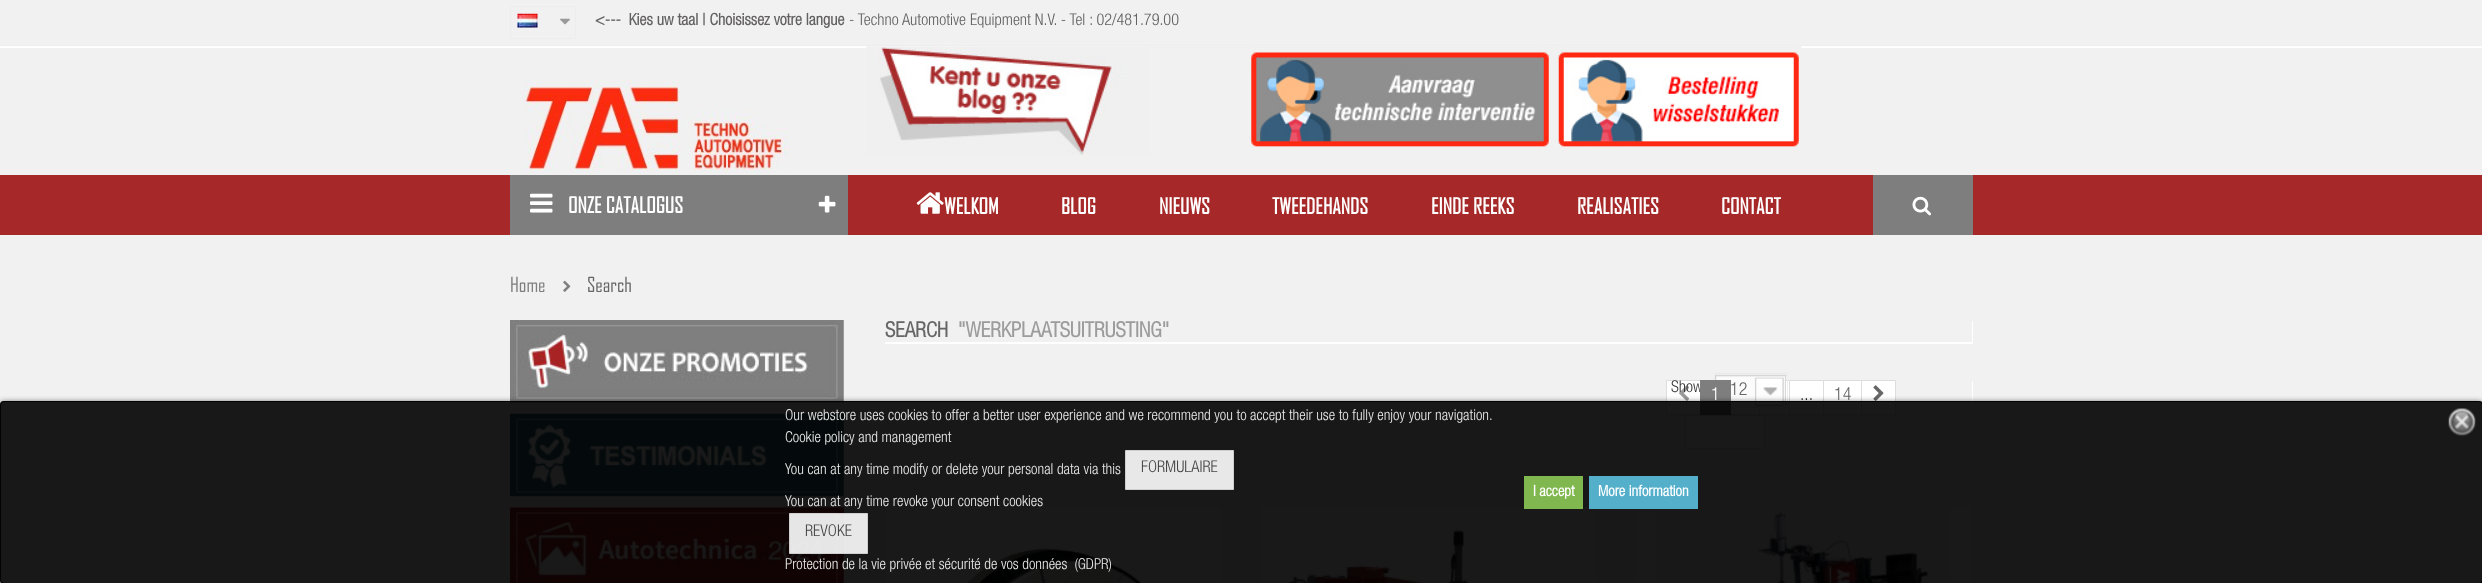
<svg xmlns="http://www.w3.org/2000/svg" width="2482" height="583">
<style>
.a{font:bold 16.25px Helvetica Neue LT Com;fill:#626060}
.b{font:300 16.25px Helvetica Neue LT Com;fill:#626060}
.c{font:bold 21.25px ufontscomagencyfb;fill:#fff}
.d{font:20px ufontscomagencyfb;fill:#7e7e7e}
.e{font:20px ufontscomagencyfb;fill:#666}
.f{font:bold 21.25px Helvetica Neue LT Com;fill:#666}
.g{font:bold 21.25px Helvetica Neue LT Com;fill:#9c9c9c}
.h{font:300 16.25px Helvetica Neue LT Com;fill:#333}
.i{font:300 18px Helvetica Neue LT Com;fill:#666}
.j{font:bold 15px Helvetica Neue LT Com;fill:#fff}
.k{font:300 15px Helvetica Neue LT Com;fill:#e8e8e8}
.l{font:300 16.25px Helvetica Neue LT Com;fill:#454545}
.m{font:300 18px Helvetica Neue LT Com;fill:#fff}
.n{font:300 18px Helvetica Neue LT Com;fill:#1e1e21}
</style>
<defs>
<clipPath id="clip1"><path d="M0 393h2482v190h-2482zm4 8h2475c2 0 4 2 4 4v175c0 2-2 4-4 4h-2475c-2 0-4-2-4-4v-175c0-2 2-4 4-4z" clip-rule="evenodd"/></clipPath>
</defs>
<rect width="100%" height="100%" fill="#f1f1f1"/>
<path fill="#fff" d="M0 46v2h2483v-47h-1v45z"/>
<path fill="#eee" d="M0 45h2482v1H0z"/>
<path fill="none" stroke="#ededed" d="M510.5 6.5h65v32H510.5z"/>
<image href="1.png" x="517" y="13" width="21" height="15"/>
<image href="2.png" x="560" y="18" width="10" height="7"/>
<image href="3.png" x="524" y="80" width="264" height="93"/>
<image href="4.png" x="866" y="46" width="284" height="109"/>
<image href="5.png" x="1150" y="46" width="97" height="2"/>
<image href="6.png" x="1246" y="46" width="307" height="101"/>
<image href="7.png" x="1552" y="46" width="250" height="101"/>
<path fill="#a62828" d="M0 175h2482v60H0z"/>
<path fill="#7e7e7e" d="M1873 175h100v60H1873z"/>
<image href="8.png" x="1912" y="196" width="19" height="20"/>
<path fill="#7e7e7e" d="M510 175h338v60H510z"/>
<image href="10.png" x="530" y="193" width="23" height="20"/>
<image href="11.png" x="818" y="195" width="18" height="18"/>
<image href="12.png" x="916" y="192" width="28" height="22"/>
<image href="13.png" x="563" y="280" width="8" height="12"/>
<image href="14.png" x="510" y="320" width="334" height="83"/>
<image href="15.png" x="510" y="413" width="334" height="84"/>
<image href="16.png" x="510" y="507" width="334" height="76"/>
<path fill="#fff" d="M885 342v2h1088v-23h-1v21z"/>
<path fill="#fff" d="M885 469v1h1088v-89h-1v88z"/>
<path fill="#eee" d="M885 468h1088v1H885z"/>
<image href="17.png" x="1715" y="373" width="73" height="7"/>
<path fill="#fff" d="M1731 406h28v8H1731z"/>
<path fill="none" stroke="#ddd" d="M1730.5 380.5h29v34H1730.5z"/>
<path fill="#fff" stroke="#ddd" d="M1759.5 380.5h30v34H1759.5z"/>
<path fill="none" stroke="#eee" d="M1714.5 374.5h73v33H1714.5z"/>
<image href="18.png" x="1727" y="375" width="59" height="32"/>
<path fill="#fff" stroke="#ddd" d="M1666.5 380.5h34v34H1666.5z"/>
<image href="19.png" x="1679" y="385" width="10" height="16"/>
<path fill="#fff" stroke="#ddd" d="M1789.5 380.5h34v34H1789.5z"/>
<path fill="#fff" d="M1824 381h37v33H1824z"/>
<path fill="none" stroke="#ddd" d="M1823.5 380.5h39v34H1823.5z"/>
<path fill="#fff" stroke="#ddd" d="M1861.5 380.5h34v34H1861.5z"/>
<image href="20.png" x="1873" y="385" width="11" height="16"/>
<path fill="#fff" stroke="#ddd" d="M1685.5 415.5h79v33H1685.5z"/>
<path fill="none" stroke="#eee" d="M885.5 506.5h337v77H885.5z"/>
<image href="21.png" x="886" y="507" width="335" height="76"/>
<path fill="none" stroke="#eee" d="M1260.5 506.5h337v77H1260.5z"/>
<image href="22.png" x="1261" y="507" width="335" height="76"/>
<path fill="none" stroke="#eee" d="M1635.5 506.5h337v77H1635.5z"/>
<image href="23.png" x="1636" y="507" width="335" height="76"/>
<text class="a" xml:space="preserve" x="595" y="25">&lt;---  Kies uw taal | Choisissez votre langue</text>
<text class="b" x="849" y="25">- Techno Automotive Equipment N.V. - Tel : 02/481.79.00</text>
<text class="c" x="568" y="213">ONZE CATALOGUS</text>
<text class="c" x="944" y="214">WELKOM</text>
<text class="c" x="1061" y="214">BLOG</text>
<text class="c" x="1159" y="214">NIEUWS</text>
<text class="c" x="1272" y="214">TWEEDEHANDS</text>
<text class="c" x="1431" y="214">EINDE REEKS</text>
<text class="c" x="1577" y="214">REALISATIES</text>
<text class="c" x="1721" y="214">CONTACT</text>
<text class="d" x="510" y="292">Home</text>
<text class="e" x="587" y="292">Search</text>
<text class="f" x="885" y="337">SEARCH</text>
<text class="g" x="958" y="337">"WERKPLAATSUITRUSTING"</text>
<text class="h" x="1671" y="392">Show</text>
<text class="i" x="1730" y="395">12</text>
<path fill="#7e7e7e" d="M1700 380h31v35H1700z"/>
<g clip-path="url(#clip1)">
<rect fill="#000000e6" filter="blur(3px)" y="403" width="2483" height="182" rx="4"/>
</g>
<rect fill="#000000e6" y="401" width="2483" height="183" rx="4"/>
<rect fill="none" stroke="#000000e6" x="0.5" y="401.5" width="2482" height="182" rx="3.5"/>
<image href="9.png" x="2448" y="408" width="28" height="28"/>
<path fill="#54afca" d="M1589 476h109v33H1589z"/>
<text class="j" x="1598" y="496">More information</text>
<path fill="#80b74e" d="M1524 476h59v33H1524z"/>
<text class="j" x="1533" y="496">I accept</text>
<text class="k" xml:space="preserve" x="785" y="569">Protection de la vie privée et sécurité de vos données  (GDPR)</text>
<path fill="#ffffffe6" stroke="#cfcfcf" d="M789.5 513.5h78v40H789.5z"/>
<text class="l" x="805" y="536">REVOKE</text>
<text class="k" x="785" y="506">You can at any time revoke your consent cookies</text>
<path fill="#e8e8e8" stroke="#cfcfcf" d="M1125.5 450.5h108v39H1125.5z"/>
<text class="l" x="1141" y="472">FORMULAIRE</text>
<text class="k" x="785" y="474">You can at any time modify or delete your personal data via this</text>
<text class="k" x="785" y="442">Cookie policy and management</text>
<text class="k" x="785" y="420">Our webstore uses cookies to offer a better user experience and we recommend you to accept their use to fully enjoy your navigation.</text>
<text class="m" x="1711" y="400">1</text>
<text class="n" x="1800" y="400">...</text>
<text class="i" x="1834" y="400">14</text>
</svg>
